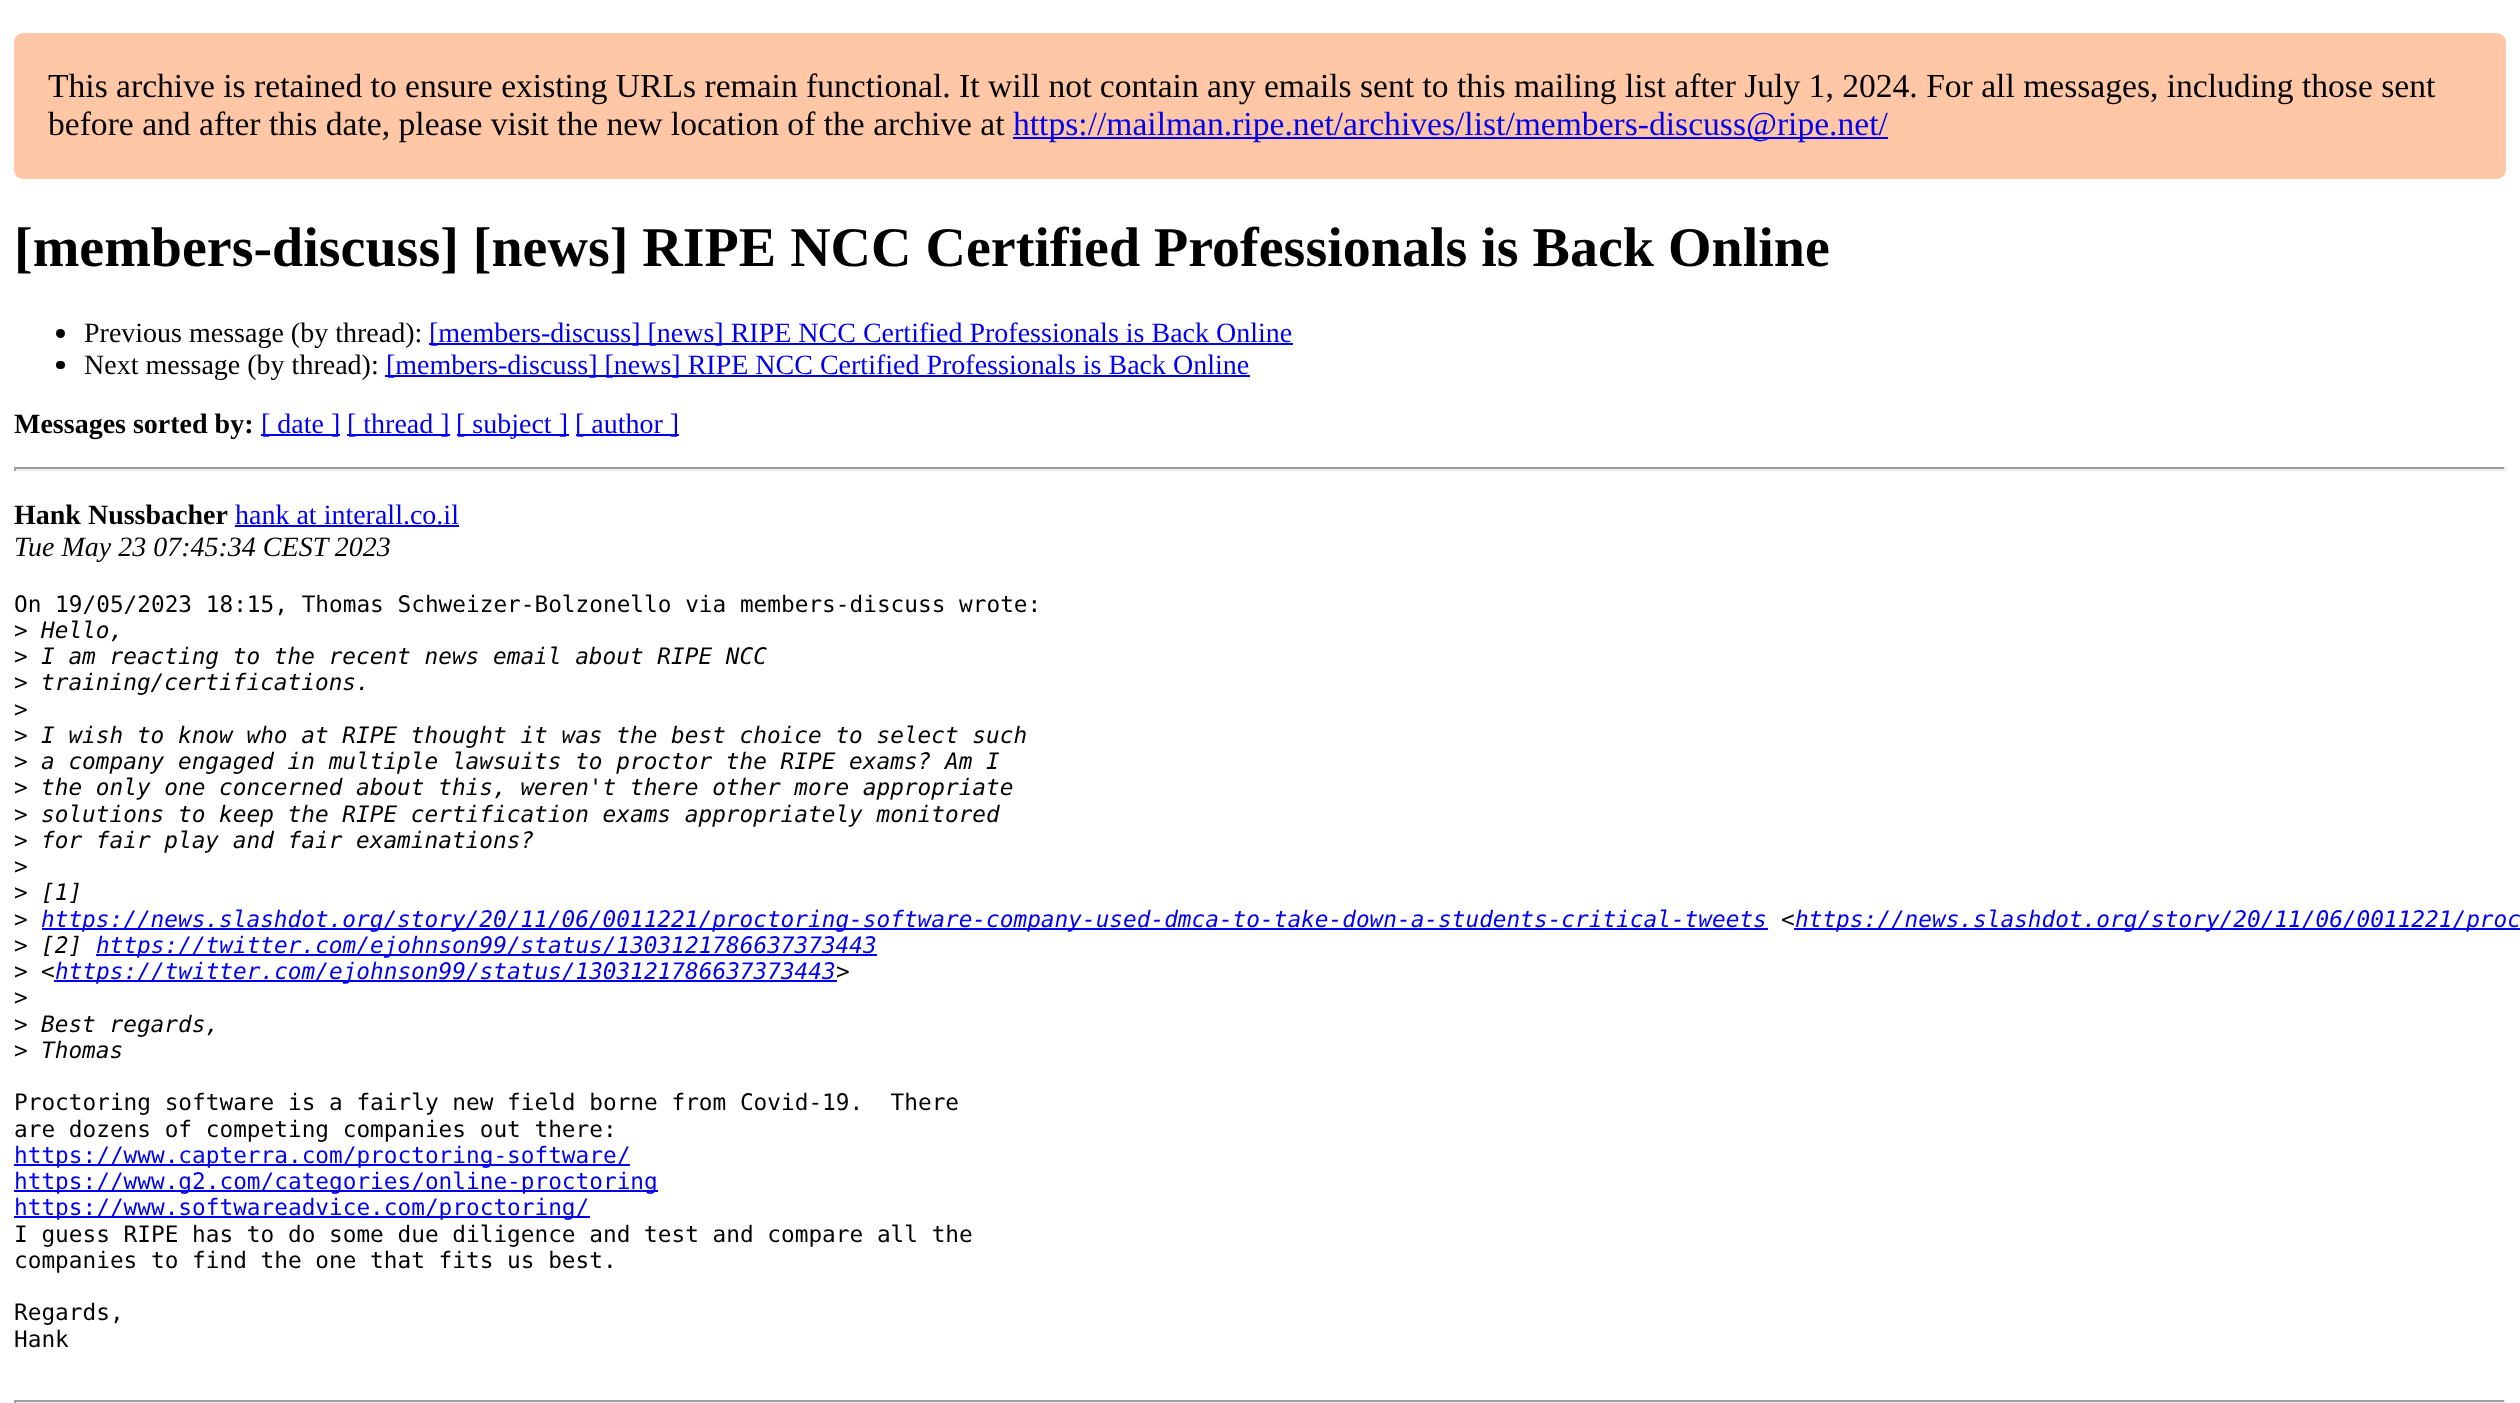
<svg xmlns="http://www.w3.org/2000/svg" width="2520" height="1403">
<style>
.a{font:33.6px Liberation Serif;fill:#000}
.b{font:33.6px Liberation Serif;fill:#00e}
.c{font:bold 56px Liberation Serif;fill:#000}
.d{font:28px Liberation Serif;fill:#000}
.e{font:28px Liberation Serif;fill:#00e}
.f{font:bold 28px Liberation Serif;fill:#000}
.g{font:italic 28px Liberation Serif;fill:#000}
.h{font:22.75px DejaVu Sans Mono;fill:#000}
.i{font:italic 22.75px DejaVu Sans Mono;fill:#000}
.j{font:italic 22.75px DejaVu Sans Mono;fill:#00e}
.k{font:22.75px DejaVu Sans Mono;fill:#00e}
</style>
<rect width="100%" height="100%" fill="#fff"/>
<rect fill="#ffc7a6" x="14" y="33" width="2492" height="146" rx="9"/>
<path fill="#00e" d="M1013 137h875v2H1013z"/>
<circle fill="#000" cx="60.5" cy="333.5" r="4.5"/>
<path fill="#00e" d="M429 343h864v2H429z"/>
<rect fill="#000" x="56" y="361" width="9" height="8" rx="4"/>
<path fill="#00e" d="M385 375h865v2H385z"/>
<path fill="#00e" d="M261 434h79v2H261z"/>
<path fill="#00e" d="M347 434h103v2H347z"/>
<path fill="#00e" d="M457 434h112v2H457z"/>
<path fill="#00e" d="M576 434h103v2H576z"/>
<path fill="#9f9f9f" d="M14 467h2492v2H14z"/>
<path fill="#eee" d="M2504 467h2v4H2504z"/>
<path fill="#eee" d="M14 469h2492v2H14z"/>
<path fill="#9f9f9f" d="M14 467h2v4H14z"/>
<path fill="#00e" d="M235 525h224v2H235z"/>
<path fill="#00e" d="M42 928h1726v2H42z"/>
<path fill="#00e" d="M1794 928h726v2H1794z"/>
<path fill="#00e" d="M96 954h781v2H96z"/>
<path fill="#00e" d="M54 980h783v2H54z"/>
<path fill="#00e" d="M14 1164h616v2H14z"/>
<path fill="#00e" d="M14 1190h644v2H14z"/>
<path fill="#00e" d="M14 1216h576v2H14z"/>
<path fill="#9f9f9f" d="M14 1400h2492v2H14z"/>
<path fill="#eee" d="M2504 1400h2v3H2504z"/>
<path fill="#eee" d="M14 1402h2492v1H14z"/>
<path fill="#9f9f9f" d="M14 1400h2v3H14z"/>
<text class="a" x="48" y="97">This archive is retained to ensure existing URLs remain functional. It will not contain any emails sent to this mailing list after July 1, 2024. For all messages, including those sent</text>
<text class="a" x="48" y="135">before and after this date, please visit the new location of the archive at</text>
<text class="b" x="1013" y="135">https://mailman.ripe.net/archives/list/members-discuss@ripe.net/</text>
<text class="c" x="14" y="266">[members-discuss] [news] RIPE NCC Certified Professionals is Back Online</text>
<text class="d" x="84" y="342">Previous message (by thread):</text>
<text class="e" x="429" y="342">[members-discuss] [news] RIPE NCC Certified Professionals is Back Online</text>
<text class="d" x="84" y="374">Next message (by thread):</text>
<text class="e" x="386" y="374">[members-discuss] [news] RIPE NCC Certified Professionals is Back Online</text>
<text class="f" x="14" y="433">Messages sorted by:</text>
<text class="e" x="261" y="433">[ date ]</text>
<text class="e" x="347" y="433">[ thread ]</text>
<text class="e" x="456" y="433">[ subject ]</text>
<text class="e" x="575" y="433">[ author ]</text>
<text class="f" x="14" y="524">Hank Nussbacher</text>
<text class="e" x="235" y="524">hank at interall.co.il</text>
<text class="g" x="14" y="556">Tue May 23 07:45:34 CEST 2023</text>
<text class="h" x="14" y="612">On 19/05/2023 18:15, Thomas Schweizer-Bolzonello via members-discuss wrote:</text>
<text class="h" x="14" y="638">&gt;</text>
<text class="i" x="41" y="638">Hello,</text>
<text class="h" x="14" y="664">&gt;</text>
<text class="i" x="41" y="664">I am reacting to the recent news email about RIPE NCC</text>
<text class="h" x="14" y="690">&gt;</text>
<text class="i" x="41" y="690">training/certifications.</text>
<text class="h" x="14" y="717">&gt;</text>
<text class="h" x="14" y="743">&gt;</text>
<text class="i" x="41" y="743">I wish to know who at RIPE thought it was the best choice to select such</text>
<text class="h" x="14" y="769">&gt;</text>
<text class="i" x="41" y="769">a company engaged in multiple lawsuits to proctor the RIPE exams? Am I</text>
<text class="h" x="14" y="795">&gt;</text>
<text class="i" x="41" y="795">the only one concerned about this, weren't there other more appropriate</text>
<text class="h" x="14" y="822">&gt;</text>
<text class="i" x="41" y="822">solutions to keep the RIPE certification exams appropriately monitored</text>
<text class="h" x="14" y="848">&gt;</text>
<text class="i" x="41" y="848">for fair play and fair examinations?</text>
<text class="h" x="14" y="874">&gt;</text>
<text class="h" x="14" y="900">&gt;</text>
<text class="i" x="41" y="900">[1]</text>
<text class="h" x="14" y="927">&gt;</text>
<text class="j" x="41" y="927">https://news.slashdot.org/story/20/11/06/0011221/proctoring-software-company-used-dmca-to-take-down-a-students-critical-tweets</text>
<text class="i" x="1781" y="927">&lt;</text>
<text class="j" x="1795" y="927">https://news.slashdot.org/story/20/11/06/0011221/proc</text>
<text class="h" x="14" y="953">&gt;</text>
<text class="i" x="41" y="953">[2]</text>
<text class="j" x="96" y="953">https://twitter.com/ejohnson99/status/1303121786637373443</text>
<text class="h" x="14" y="979">&gt;</text>
<text class="i" x="41" y="979">&lt;</text>
<text class="j" x="55" y="979">https://twitter.com/ejohnson99/status/1303121786637373443</text>
<text class="i" x="836" y="979">&gt;</text>
<text class="h" x="14" y="1005">&gt;</text>
<text class="h" x="14" y="1032">&gt;</text>
<text class="i" x="41" y="1032">Best regards,</text>
<text class="h" x="14" y="1058">&gt;</text>
<text class="i" x="41" y="1058">Thomas</text>
<text class="h" xml:space="preserve" x="14" y="1110">Proctoring software is a fairly new field borne from Covid-19.  There</text>
<text class="h" x="14" y="1137">are dozens of competing companies out there:</text>
<text class="k" x="14" y="1163">https://www.capterra.com/proctoring-software/</text>
<text class="k" x="14" y="1189">https://www.g2.com/categories/online-proctoring</text>
<text class="k" x="14" y="1215">https://www.softwareadvice.com/proctoring/</text>
<text class="h" x="14" y="1242">I guess RIPE has to do some due diligence and test and compare all the</text>
<text class="h" x="14" y="1268">companies to find the one that fits us best.</text>
<text class="h" x="14" y="1320">Regards,</text>
<text class="h" x="14" y="1347">Hank</text>
</svg>
